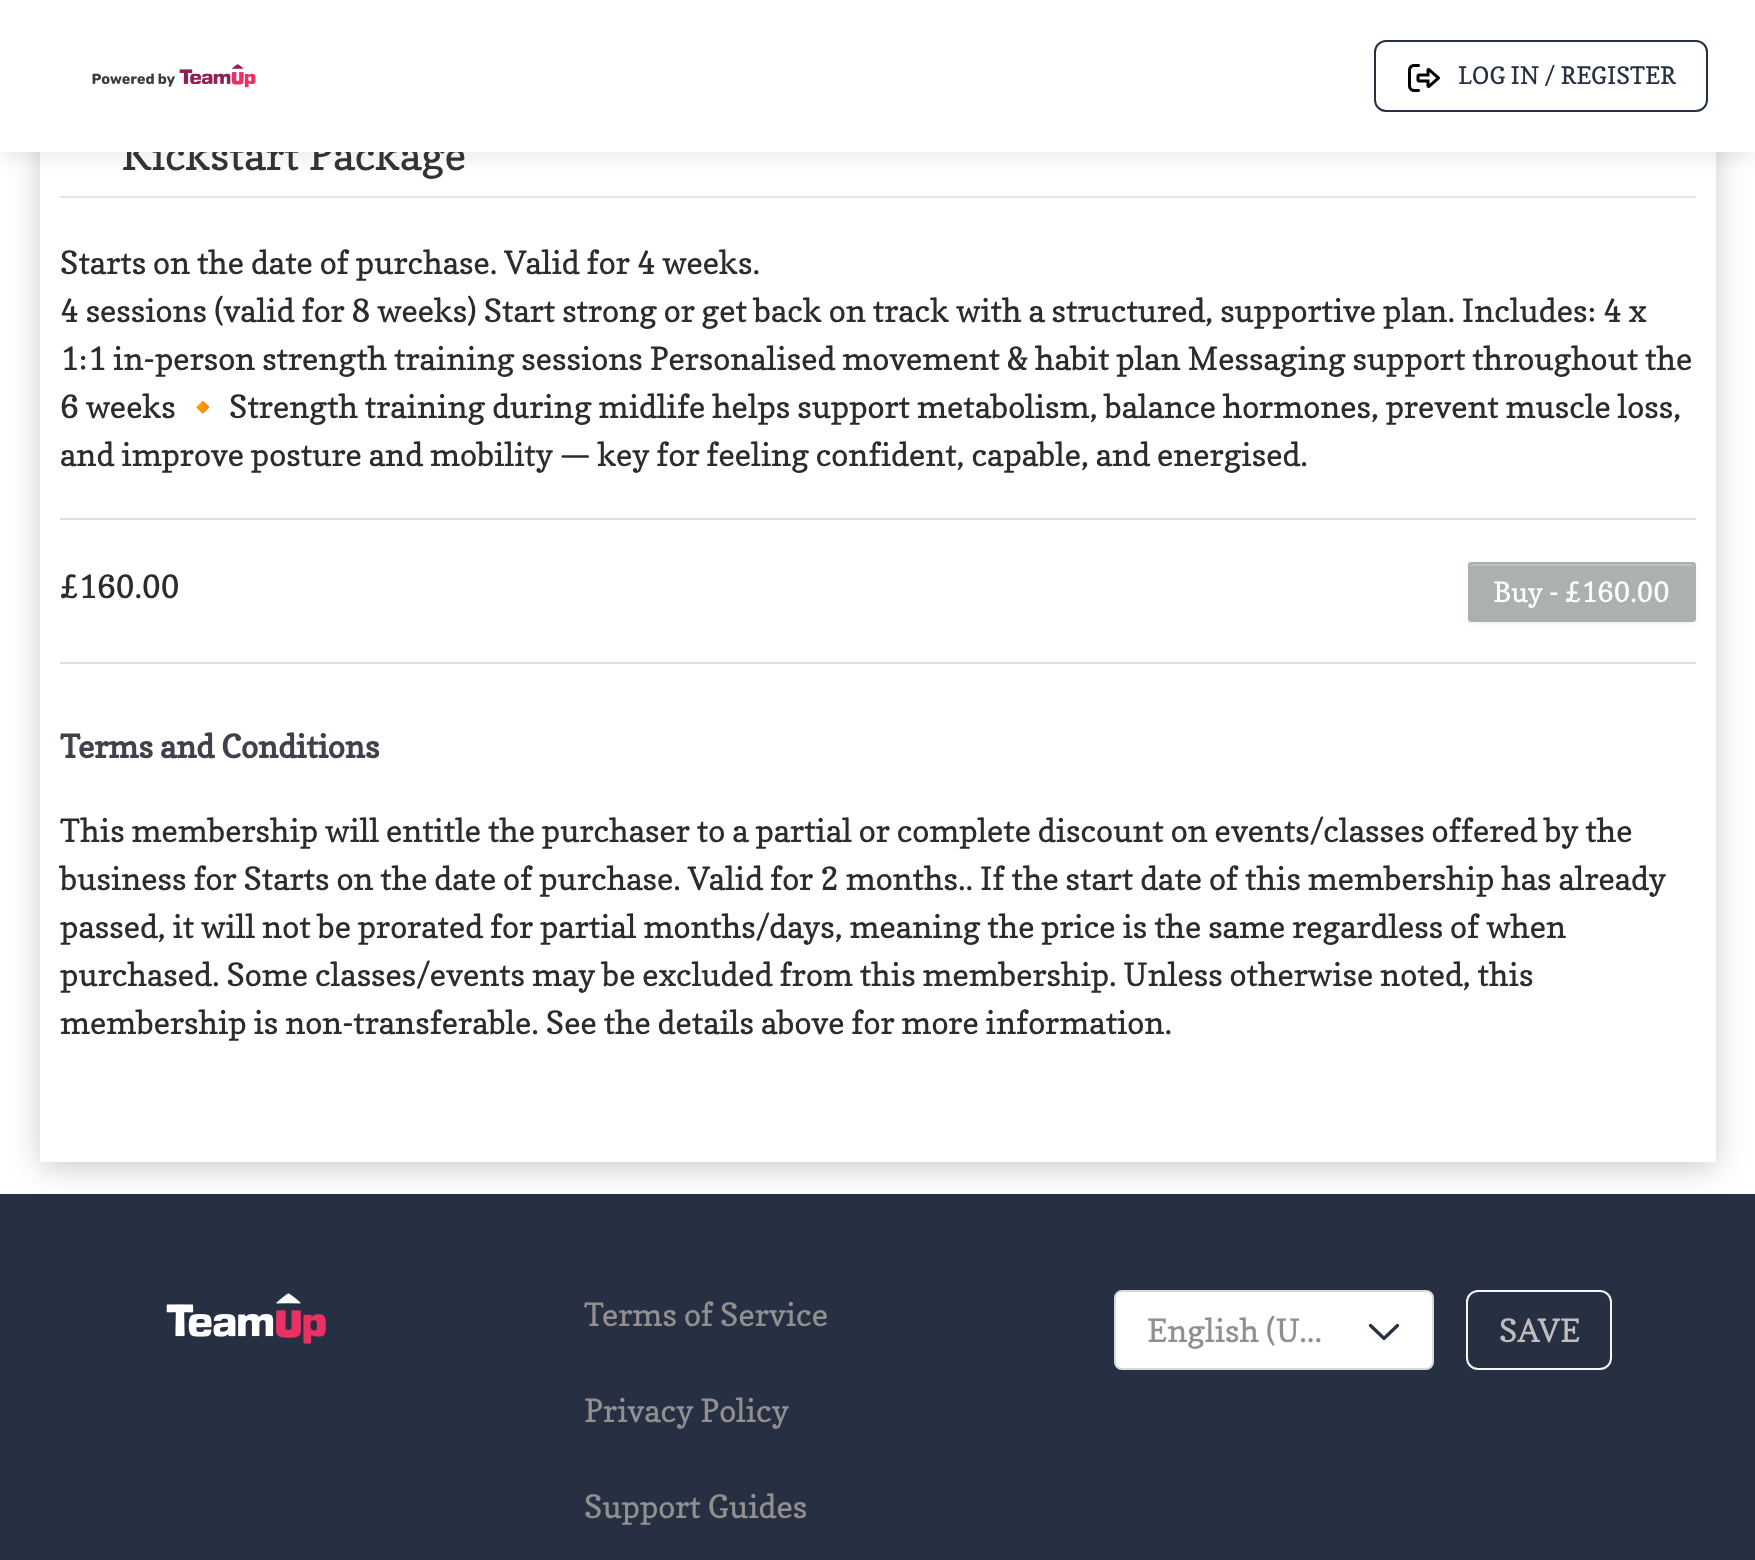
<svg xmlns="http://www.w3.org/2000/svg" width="1755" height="1560">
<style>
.a{font:42px Copse;fill:#333}
.b{font:24px Copse;fill:#273043}
.c{font:32px Copse;fill:#2c2c2c}
.d{font:32px Noto Color Emoji;fill:#2c2c2c}
.e{font:28px Copse;fill:#fff}
.f{font:bold 32px Copse;fill:#41414c}
.g{font:32px Copse;fill:#918f90}
.h{font:32px Copse;fill:#bfbdbe}
</style>
<defs>
<clipPath id="clip1"><path d="M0 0h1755v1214h-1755zm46-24h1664c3.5 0 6 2.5 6 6v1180h-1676v-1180c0-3.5 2.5-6 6-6z" clip-rule="evenodd"/></clipPath>
</defs>
<rect width="100%" height="100%" fill="#fff"/>
<path fill="#17204e14" filter="blur(8px)" d="M0 8h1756v152H0z"/>
<g clip-path="url(#clip1)">
<rect fill="#00000033" filter="blur(15px)" x="40" y="-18" width="1676" height="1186" rx="6"/>
</g>
<path fill="#e5e5e5" d="M60 196h1636v2H60z"/>
<path fill="#dddde2" d="M60 518h1636v2H60z"/>
<rect fill="#0000000d" filter="blur(2px)" x="1468" y="564" width="228" height="60" rx="4"/>
<rect fill="#aab1b0" x="1468" y="562" width="228" height="60" rx="4"/>
<path fill="#bbc1c0" d="M1472 566h220c1 0 2 1 2 2v-2c0-1-1-2-2-2h-220c-1 0-2 1-2 2v2c0-1 1-2 2-2z"/>
<rect fill="none" stroke="#aab1b0" stroke-width="2" x="1469" y="563" width="226" height="58" rx="3"/>
<path fill="#dddde2" d="M60 662h1636v2H60z"/>
<path fill="#273043" d="M0 1194h1755v366H0z"/>
<image href="3.png" x="166" y="1293" width="160" height="51"/>
<rect fill="#fff" stroke="#d8d9db" stroke-width="2" x="1115" y="1291" width="318" height="78" rx="7"/>
<image href="4.png" x="1368" y="1323" width="32" height="18"/>
<rect fill="none" stroke="#f4f5f7" stroke-width="2" x="1467" y="1291" width="144" height="78" rx="11"/>
<text class="a" x="121" y="170">Kickstart Package</text>
<path fill="#fff" d="M0 0h1755v152H0z"/>
<rect fill="none" stroke="#273043" stroke-width="2" x="1375" y="41" width="332" height="70" rx="11"/>
<image href="2.png" x="1408" y="64" width="32" height="28"/>
<text class="b" x="1458" y="84">LOG IN / REGISTER</text>
<image href="1.png" x="92" y="64" width="164" height="24"/>
<text class="c" x="60" y="274">Starts on the date of purchase. Valid for 4 weeks.</text>
<text class="c" x="60" y="322">4 sessions (valid for 8 weeks) Start strong or get back on track with a structured, supportive plan. Includes: 4 x</text>
<text class="c" x="60" y="370">1:1 in-person strength training sessions Personalised movement &amp; habit plan Messaging support throughout the</text>
<text class="c" x="60" y="418">6 weeks</text>
<text class="d" x="183" y="418">🔸</text>
<text class="c" x="229" y="418">Strength training during midlife helps support metabolism, balance hormones, prevent muscle loss,</text>
<text class="c" x="60" y="466">and improve posture and mobility — key for feeling confident, capable, and energised.</text>
<text class="c" x="60" y="598">£160.00</text>
<text class="e" x="1493" y="602">Buy - £160.00</text>
<text class="f" x="60" y="758">Terms and Conditions</text>
<text class="c" x="60" y="842">This membership will entitle the purchaser to a partial or complete discount on events/classes offered by the</text>
<text class="c" x="60" y="890">business for Starts on the date of purchase. Valid for 2 months.. If the start date of this membership has already</text>
<text class="c" x="60" y="938">passed, it will not be prorated for partial months/days, meaning the price is the same regardless of when</text>
<text class="c" x="60" y="986">purchased. Some classes/events may be excluded from this membership. Unless otherwise noted, this</text>
<text class="c" x="60" y="1034">membership is non-transferable. See the details above for more information.</text>
<text class="g" x="584" y="1326">Terms of Service</text>
<text class="g" x="584" y="1422">Privacy Policy</text>
<text class="g" x="584" y="1518">Support Guides</text>
<text class="g" x="1147" y="1342">English (U...</text>
<text class="h" x="1499" y="1342">SAVE</text>
</svg>
